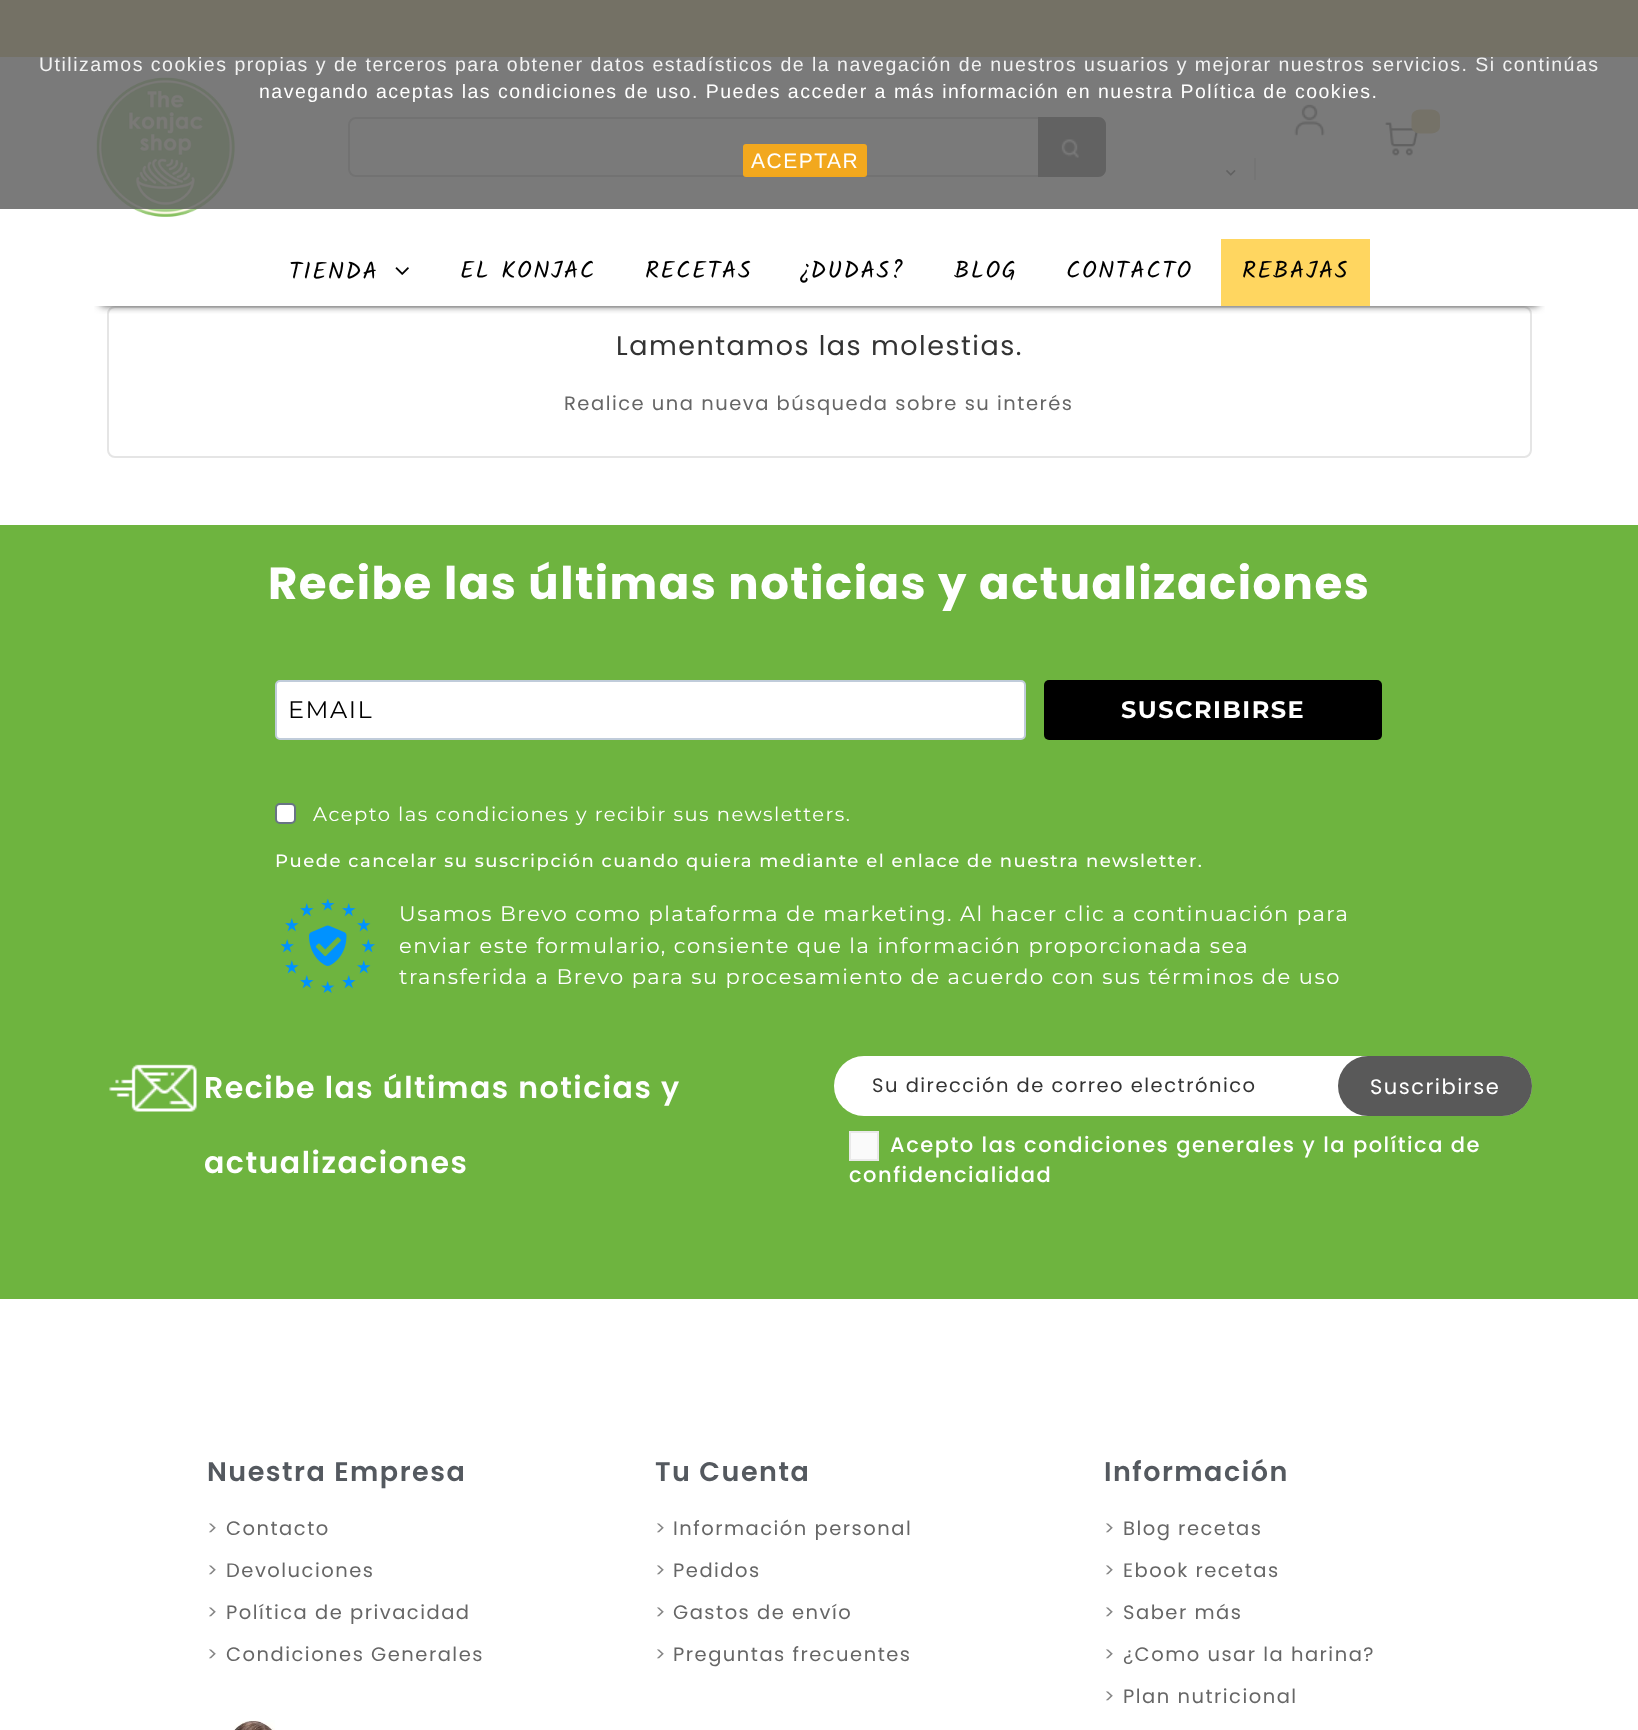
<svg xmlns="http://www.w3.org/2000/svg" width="1638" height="1730">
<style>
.a{font:19.5px Liberation Sans;letter-spacing:1.5px;fill:#f2f2f2}
.b{font:19.5px Liberation Sans;letter-spacing:1.5px;fill:#fff}
.c{font:21px Liberation Sans;letter-spacing:1.5px;fill:#fff}
.d{font:24px Kalam;letter-spacing:1.5px;fill:#000}
.e{font:27px Poppins;letter-spacing:1.5px;fill:#333}
.f{font:19.5px Poppins;letter-spacing:1.5px;fill:#666}
.g{font:bold 45px Poppins;letter-spacing:1.5px;fill:#fff}
.h{font:24px Montserrat;letter-spacing:1.5px;fill:#000}
.i{font:bold 24px Montserrat;letter-spacing:1.5px;fill:#fff}
.j{font:19.5px Montserrat;letter-spacing:1.5px;fill:#fff}
.k{font:500 18px Montserrat;letter-spacing:1.5px;fill:#fff}
.l{font:21px Montserrat;letter-spacing:1.5px;fill:#fff}
.m{font:600 30px Poppins;letter-spacing:1.5px;fill:#fff}
.n{font:19.5px Poppins;letter-spacing:1.5px;fill:#333}
.o{font:21px Poppins;letter-spacing:1.5px;fill:#fff}
.p{font:500 21px Poppins;letter-spacing:1.5px;fill:#fff}
.q{font:600 27px Poppins;letter-spacing:1.5px;fill:#54595f}
.r{font:19.5px Poppins;letter-spacing:1.5px;fill:#878787}
</style>
<defs>
<clipPath id="clip1"><path d="M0 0h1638v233h-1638zm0 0h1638v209h-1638z" clip-rule="evenodd"/></clipPath>
<clipPath id="clip2"><path d="M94 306h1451v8H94z"/></clipPath>
</defs>
<rect width="100%" height="100%" fill="#fff"/>
<path fill="#c4a131" d="M0 0h1638v57H0z"/>
<image href="1.png" x="96" y="77" width="139" height="140"/>
<rect fill="none" stroke="#a9a9a9" stroke-width="2" x="349" y="118" width="756" height="58" rx="7"/>
<path fill="#111" d="M1038 117h60c4.5 0 8 3.5 8 8v44c0 4.5-3.5 8-8 8h-60z"/>
<image href="2.png" x="1061" y="139" width="18" height="19"/>
<image href="3.png" x="1226" y="170" width="10" height="6"/>
<path fill="#cdcdcd" d="M1254 158h2v22H1254z"/>
<image href="4.png" x="1294" y="104" width="31" height="32"/>
<image href="5.png" x="1385" y="122" width="34" height="34"/>
<path fill="#caac4e" d="M1420 109.5h11.5c4.5 0 8.5 3 8.5 7v10c0 4-4 7-8.5 7h-11.5c-4.5 0-8.5-3-8.5-7v-10c0-4 4-7 8.5-7z"/>
<g clip-path="url(#clip1)">
<path fill="#ffffffe6" filter="blur(7.5px)" d="M0 0h1638v209H0z"/>
</g>
<path fill="#6b6b6be6" d="M0 0h1638v209H0z"/>
<rect fill="#ffad14e6" x="743" y="144" width="124" height="33" rx="3"/>
<rect fill="none" stroke="#e5e5e5" stroke-width="2" x="108" y="307" width="1423" height="150" rx="7"/>
<g clip-path="url(#clip2)">
<path fill="#222" filter="blur(4.5px)" d="M101 255h1437v50H101z"/>
</g>
<image href="6.png" x="395" y="267" width="14" height="8"/>
<path fill="#ffd660" d="M1221 239h149v67H1221z"/>
<path fill="#6eb43f" d="M0 525h1638v774H0z"/>
<rect fill="#fff" stroke="#c0ccda" stroke-width="2" x="276" y="681" width="749" height="58" rx="4"/>
<rect fill="#000" x="1044" y="680" width="338" height="60" rx="5"/>
<rect fill="#fff" stroke="#687484" stroke-width="2" x="276" y="804" width="19" height="19" rx="4"/>
<image href="7.png" x="281" y="899" width="94" height="94"/>
<image href="8.png" x="109" y="1064" width="88" height="48"/>
<rect fill="#fff" x="834" y="1056" width="698" height="60" rx="30"/>
<rect fill="#000000a6" x="1338" y="1056" width="194" height="60" rx="30"/>
<path fill="#fafafa" stroke="#e9e9e9" stroke-width="2" d="M850 1132h28v28H850z"/>
<image href="9.png" x="234" y="1720" width="41" height="10"/>
<text class="a" x="39" y="71">Utilizamos cookies propias y de terceros para obtener datos estadísticos de la navegación de nuestros usuarios y mejorar nuestros servicios. Si continúas</text>
<text class="b" x="259" y="98">navegando aceptas las condiciones de uso. Puedes acceder a más información en nuestra Política de cookies.</text>
<text class="c" x="751" y="168">ACEPTAR</text>
<text class="d" x="289" y="279">TIENDA</text>
<text class="d" x="460" y="278">EL KONJAC</text>
<text class="d" x="645" y="278">RECETAS</text>
<text class="d" x="800" y="278">¿DUDAS?</text>
<text class="d" x="954" y="278">BLOG</text>
<text class="d" x="1066" y="278">CONTACTO</text>
<text class="d" x="1242" y="278">REBAJAS</text>
<text class="e" x="616" y="355">Lamentamos las molestias.</text>
<text class="f" x="564" y="410">Realice una nueva búsqueda sobre su interés</text>
<text class="g" x="268" y="599">Recibe las últimas noticias y actualizaciones</text>
<text class="h" x="288" y="718">EMAIL</text>
<text class="i" x="1121" y="718">SUSCRIBIRSE</text>
<text class="j" x="313" y="821">Acepto las condiciones y recibir sus newsletters.</text>
<text class="k" x="275" y="867">Puede cancelar su suscripción cuando quiera mediante el enlace de nuestra newsletter.</text>
<text class="l" x="399" y="921">Usamos Brevo como plataforma de marketing. Al hacer clic a continuación para</text>
<text class="l" x="399" y="953">enviar este formulario, consiente que la información proporcionada sea</text>
<text class="l" x="399" y="984">transferida a Brevo para su procesamiento de acuerdo con sus términos de uso</text>
<text class="m" x="204" y="1098">Recibe las últimas noticias y</text>
<text class="m" x="204" y="1173">actualizaciones</text>
<text class="n" x="872" y="1092">Su dirección de correo electrónico</text>
<text class="o" x="1370" y="1094">Suscribirse</text>
<text class="p" x="890" y="1152">Acepto las condiciones generales y la política de</text>
<text class="p" x="849" y="1182">confidencialidad</text>
<text class="q" x="207" y="1481">Nuestra Empresa</text>
<text class="r" x="207" y="1535">&gt;</text>
<text class="f" x="226" y="1535">Contacto</text>
<text class="r" x="207" y="1577">&gt;</text>
<text class="f" x="226" y="1577">Devoluciones</text>
<text class="r" x="207" y="1619">&gt;</text>
<text class="f" x="226" y="1619">Política de privacidad</text>
<text class="r" x="207" y="1661">&gt;</text>
<text class="f" x="226" y="1661">Condiciones Generales</text>
<text class="q" x="655" y="1481">Tu Cuenta</text>
<text class="r" x="655" y="1535">&gt;</text>
<text class="f" x="673" y="1535">Información personal</text>
<text class="r" x="655" y="1577">&gt;</text>
<text class="f" x="673" y="1577">Pedidos</text>
<text class="r" x="655" y="1619">&gt;</text>
<text class="f" x="673" y="1619">Gastos de envío</text>
<text class="r" x="655" y="1661">&gt;</text>
<text class="f" x="673" y="1661">Preguntas frecuentes</text>
<text class="q" x="1104" y="1481">Información</text>
<text class="r" x="1104" y="1535">&gt;</text>
<text class="f" x="1123" y="1535">Blog recetas</text>
<text class="r" x="1104" y="1577">&gt;</text>
<text class="f" x="1123" y="1577">Ebook recetas</text>
<text class="r" x="1104" y="1619">&gt;</text>
<text class="f" x="1123" y="1619">Saber más</text>
<text class="r" x="1104" y="1661">&gt;</text>
<text class="f" x="1123" y="1661">¿Como usar la harina?</text>
<text class="r" x="1104" y="1703">&gt;</text>
<text class="f" x="1123" y="1703">Plan nutricional</text>
</svg>
